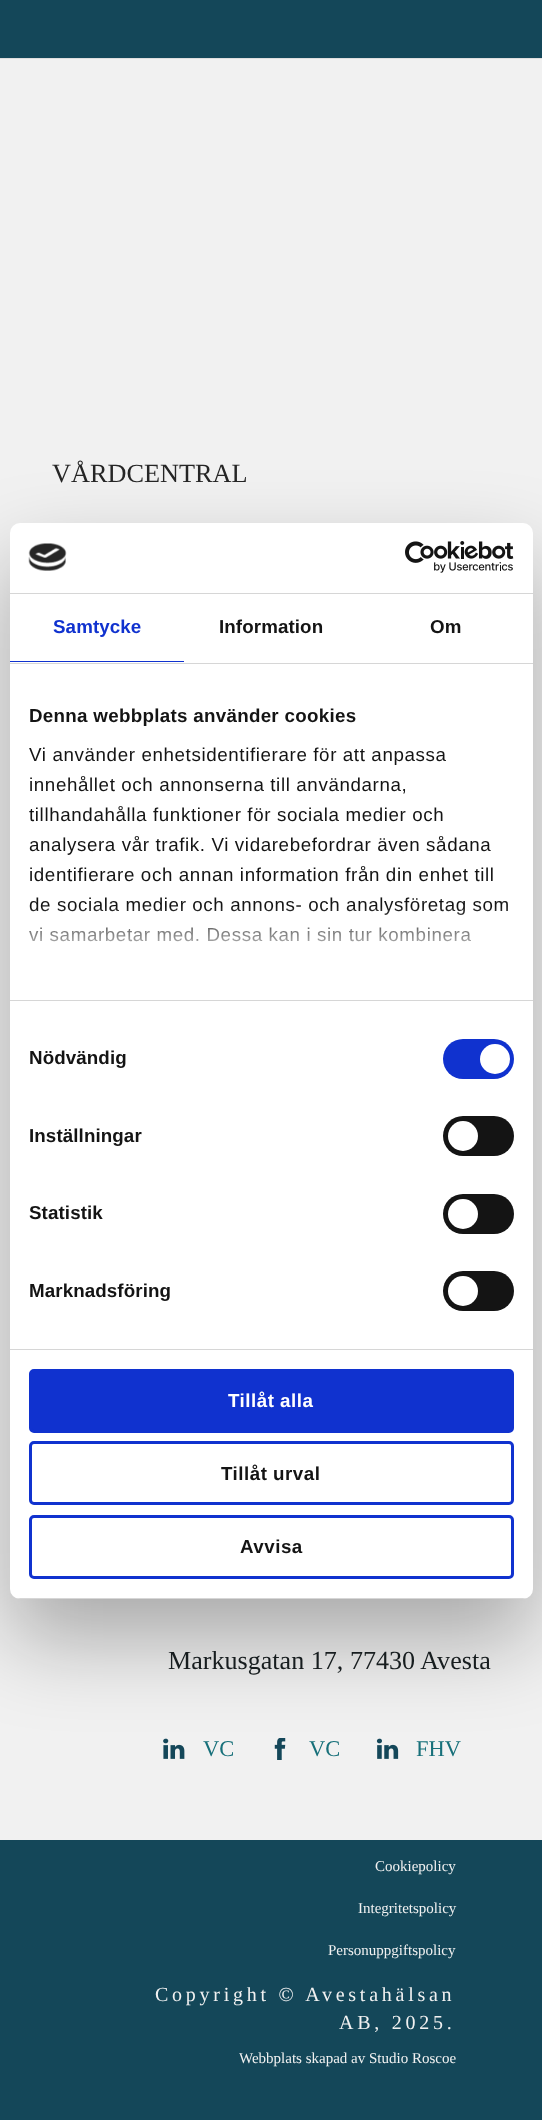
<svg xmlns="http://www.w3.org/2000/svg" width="542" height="2120">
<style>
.a{font:26.25px Liberation Serif;fill:#252525}
.b{font:26.1px Liberation Serif;fill:#171d1f}
.c{font:22.5px Liberation Serif;fill:#17707a}
.d{font:15px Liberation Serif;fill:#f1f1f1}
.e{font:20px Liberation Serif;letter-spacing:3.75px;fill:#f1f1f1}
.f{font:bold 18.75px Liberation Sans;letter-spacing:0.1px;fill:#1032cf}
.g{font:bold 18.75px Liberation Sans;letter-spacing:0.1px;fill:#141414}
.h{font:bold 18.75px Liberation Sans;letter-spacing:0.3px;fill:#141414}
.i{font:18.75px Liberation Sans;letter-spacing:0.62px;fill:#141414}
.j{font:bold 18.75px Liberation Sans;letter-spacing:0.5px;fill:#fff}
.k{font:bold 18.75px Liberation Sans;letter-spacing:0.5px;fill:#141414}
</style>
<defs>
<clipPath id="clip1"><rect x="10" y="523" width="523" height="1076" rx="10"/></clipPath>
<linearGradient id="g1" gradientUnits="userSpaceOnUse" x1="263" y1="1000" x2="263" y2="906"><stop offset="0" stop-color="#fff"/><stop offset="0.5" stop-color="#fff" stop-opacity="0.8"/><stop offset="1" stop-color="#fff" stop-opacity="0"/></linearGradient>
</defs>
<rect width="100%" height="100%" fill="#144759"/>
<path fill="#f1f1f1" d="M0 59h542v1781H0z"/>
<path fill="#dedede" d="M0 58h542v1H0z"/>
<image href="1.png" x="163" y="1738" width="22" height="21"/>
<image href="2.png" x="274" y="1738" width="12" height="22"/>
<image href="3.png" x="376" y="1738" width="23" height="21"/>
<rect fill="#0000004d" filter="blur(42.5px)" x="10" y="563" width="523" height="1076" rx="10"/>
<rect fill="#fff" x="10" y="523" width="523" height="1076" rx="10"/>
<path fill="#d6d6d6" d="M10 593h523v1H10z"/>
<image href="4.png" x="28" y="543" width="39" height="28"/>
<image href="5.png" x="405" y="541" width="109" height="32"/>
<path fill="#d6d6d6" d="M10 663h523v1H10z"/>
<path fill="#1032cf" d="M10 661h174v1H10z"/>
<path fill="#d6d6d6" d="M10 1000h523v1H10z"/>
<path fill="#d6d6d6" d="M10 1349h523v1H10z"/>
<rect fill="#1032cf" x="443" y="1039" width="71" height="40" rx="20"/>
<circle fill="#fff" cx="495" cy="1059" r="15"/>
<rect fill="#141414" x="443" y="1116" width="71" height="40" rx="20"/>
<circle fill="#fff" cx="463" cy="1136" r="15"/>
<rect fill="#141414" x="443" y="1194" width="71" height="40" rx="20"/>
<circle fill="#fff" cx="463" cy="1214" r="15"/>
<rect fill="#141414" x="443" y="1271" width="71" height="40" rx="20"/>
<circle fill="#fff" cx="463" cy="1291" r="15"/>
<g clip-path="url(#clip1)">
<path fill="#d6d6d6" d="M10 1598h523v1H10z"/>
</g>
<rect fill="#1032cf" stroke="#1032cf" stroke-width="3" x="30.5" y="1370.5" width="482" height="61" rx="3.5"/>
<rect fill="none" stroke="#1032cf" stroke-width="3" x="30.5" y="1442.5" width="482" height="61" rx="3.5"/>
<rect fill="none" stroke="#1032cf" stroke-width="3" x="30.5" y="1516.5" width="482" height="61" rx="3.5"/>
<text class="a" x="52" y="482">VÅRDCENTRAL</text>
<text class="b" x="168" y="1669">Markusgatan 17, 77430 Avesta</text>
<text class="c" x="203" y="1756">VC</text>
<text class="c" x="309" y="1756">VC</text>
<text class="c" x="416" y="1756">FHV</text>
<text class="d" x="375" y="1871">Cookiepolicy</text>
<text class="d" x="358" y="1913">Integritetspolicy</text>
<text class="d" x="328" y="1955">Personuppgiftspolicy</text>
<text class="e" x="155" y="2001">Copyright © Avestahälsan</text>
<text class="e" x="339" y="2029">AB, 2025.</text>
<text class="d" x="239" y="2063">Webbplats skapad av Studio Roscoe</text>
<text class="f" x="53" y="633">Samtycke</text>
<text class="g" x="219" y="633">Information</text>
<text class="g" x="430" y="633">Om</text>
<text class="h" x="29" y="722">Denna webbplats använder cookies</text>
<text class="i" x="29" y="761">Vi använder enhetsidentifierare för att anpassa</text>
<text class="i" x="29" y="791">innehållet och annonserna till användarna,</text>
<text class="i" x="29" y="821">tillhandahålla funktioner för sociala medier och</text>
<text class="i" x="29" y="851">analysera vår trafik. Vi vidarebefordrar även sådana</text>
<text class="i" x="29" y="881">identifierare och annan information från din enhet till</text>
<text class="i" x="29" y="911">de sociala medier och annons- och analysföretag som</text>
<text class="i" x="29" y="941">vi samarbetar med. Dessa kan i sin tur kombinera</text>
<path fill="url(#g1)" d="M28 907h480v35H28z"/>
<text class="g" x="29" y="1064">Nödvändig</text>
<text class="g" x="29" y="1142">Inställningar</text>
<text class="g" x="29" y="1219">Statistik</text>
<text class="g" x="29" y="1297">Marknadsföring</text>
<text class="j" x="228" y="1407">Tillåt alla</text>
<text class="k" x="221" y="1480">Tillåt urval</text>
<text class="k" x="240" y="1553">Avvisa</text>
</svg>
